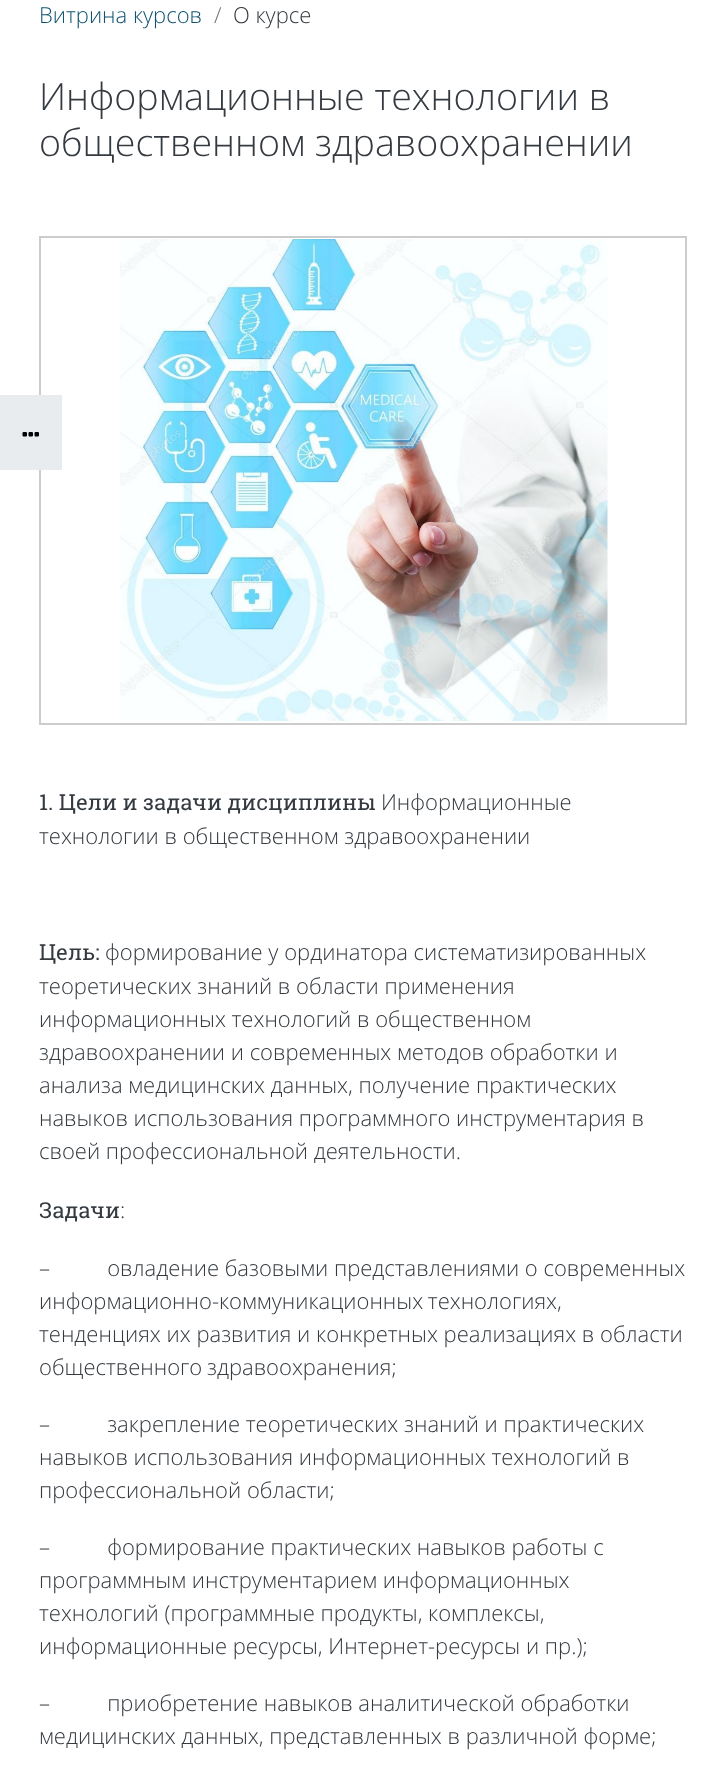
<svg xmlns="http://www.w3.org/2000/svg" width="726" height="1786">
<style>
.a{font:300 22px Open Sans;fill:#10546f}
.b{font:300 22px Open Sans;fill:#6c757d}
.c{font:300 22px Open Sans;fill:#343a40}
.d{font:300 37.6px Open Sans;fill:#343a40}
.e{font:22px Roboto Slab;fill:#343a40}
</style>
<rect width="100%" height="100%" fill="#fff"/>
<image href="2.png" x="120" y="239" width="488" height="482"/>
<path fill="none" stroke="#ccc" stroke-width="2" d="M40 237h646v487H40z"/>
<path fill="#e9ecef" d="M0 395h62v75H0z"/>
<image href="1.png" x="22" y="432" width="17" height="5"/>
<text class="a" x="39" y="23">Витрина курсов</text>
<text class="b" x="214" y="23">/</text>
<text class="c" x="233" y="23">О курсе</text>
<text class="d" x="39" y="110">Информационные технологии в</text>
<text class="d" x="39" y="156">общественном здравоохранении</text>
<text class="e" x="39" y="810">1. Цели и задачи дисциплины</text>
<text class="c" x="381" y="810">Информационные</text>
<text class="c" x="39" y="844">технологии в общественном здравоохранении</text>
<text class="e" x="39" y="960">Цель:</text>
<text class="c" x="105" y="960">формирование у ординатора систематизированных</text>
<text class="c" x="39" y="994">теоретических знаний в области применения</text>
<text class="c" x="39" y="1027">информационных технологий в общественном</text>
<text class="c" x="39" y="1060">здравоохранении и современных методов обработки и</text>
<text class="c" x="39" y="1093">анализа медицинских данных, получение практических</text>
<text class="c" x="39" y="1126">навыков использования программного инструментария в</text>
<text class="c" x="39" y="1159">своей профессиональной деятельности.</text>
<text class="e" x="39" y="1218">Задачи</text>
<text class="c" x="120" y="1218">:</text>
<text class="c" xml:space="preserve" x="39" y="1276">–          овладение базовыми представлениями о современных</text>
<text class="c" x="39" y="1309" word-spacing="-1">информационно-коммуникационных технологиях,</text>
<text class="c" x="39" y="1342">тенденциях их развития и конкретных реализациях в области</text>
<text class="c" x="39" y="1375" word-spacing="-1">общественного здравоохранения;</text>
<text class="c" xml:space="preserve" x="39" y="1432">–          закрепление теоретических знаний и практических</text>
<text class="c" x="39" y="1465">навыков использования информационных технологий в</text>
<text class="c" x="39" y="1498">профессиональной области;</text>
<text class="c" xml:space="preserve" x="39" y="1555">–          формирование практических навыков работы с</text>
<text class="c" x="39" y="1588">программным инструментарием информационных</text>
<text class="c" x="39" y="1621">технологий (программные продукты, комплексы,</text>
<text class="c" x="39" y="1654">информационные ресурсы, Интернет-ресурсы и пр.);</text>
<text class="c" xml:space="preserve" x="39" y="1711">–          приобретение навыков аналитической обработки</text>
<text class="c" x="39" y="1744">медицинских данных, представленных в различной форме;</text>
</svg>
